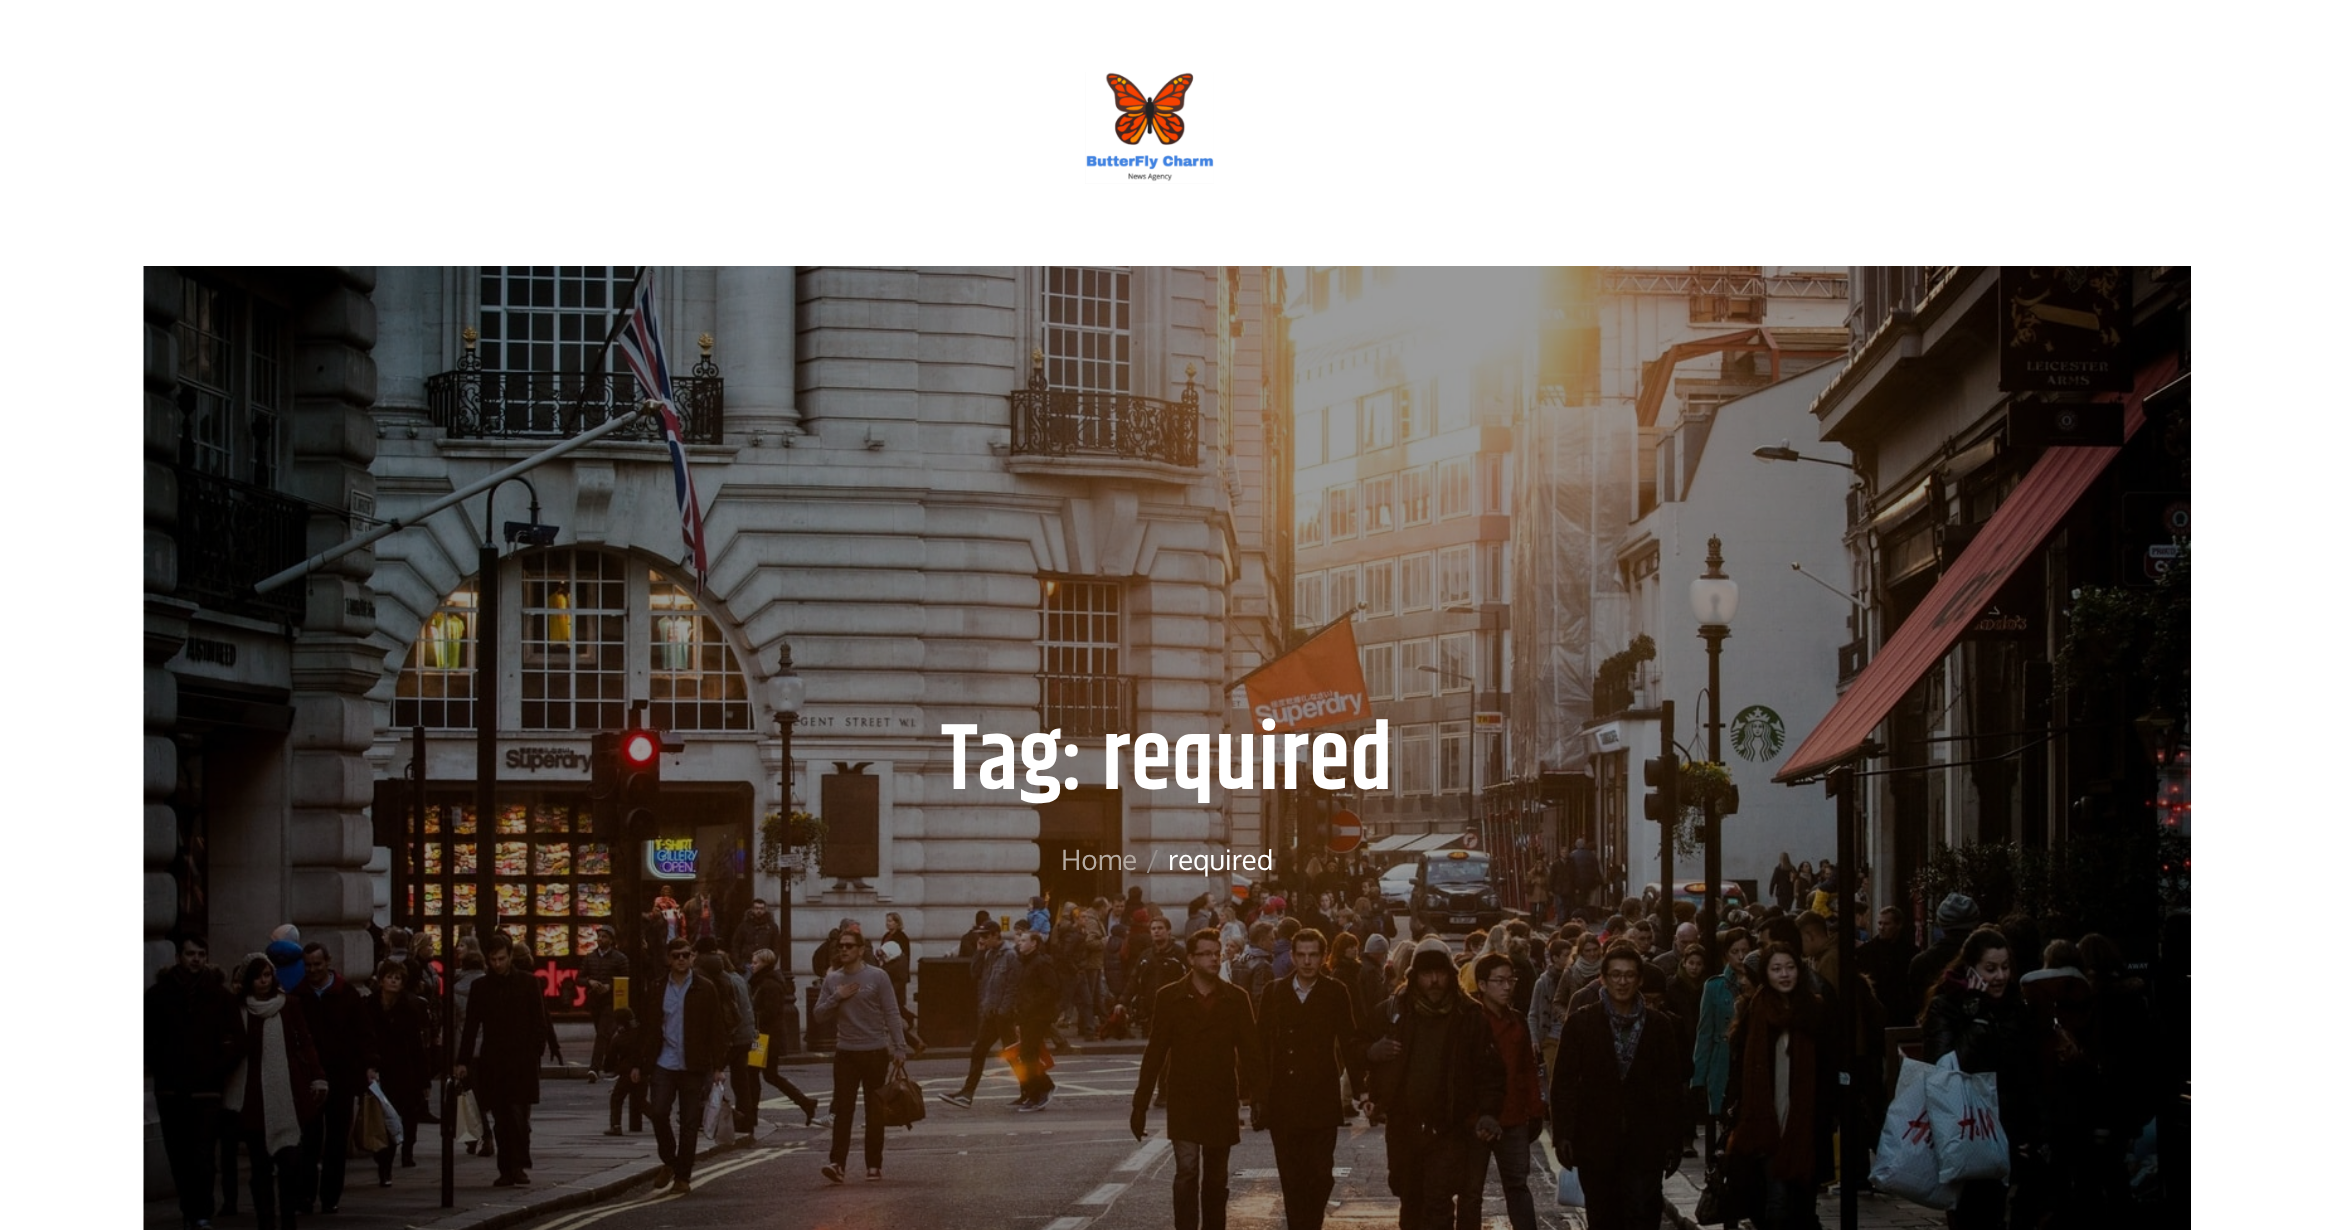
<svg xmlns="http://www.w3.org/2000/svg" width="2334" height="1230">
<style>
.a{font:600 94.5px Khand;fill:#fff}
.b{font:28px Oxygen;fill:#b5aba2}
.c{font:28px Oxygen;fill:#99918d}
.d{font:28px Oxygen;fill:#fff}
</style>
<rect width="100%" height="100%" fill="#fff"/>
<image href="1.png" x="1085" y="72" width="129" height="112"/>
<image href="2.png" x="143" y="266" width="2048" height="964"/>
<text class="a" x="941" y="789">Tag: required</text>
<text class="b" x="1061" y="870">Home</text>
<text class="c" x="1146" y="870">/</text>
<text class="d" x="1168" y="870">required</text>
</svg>
